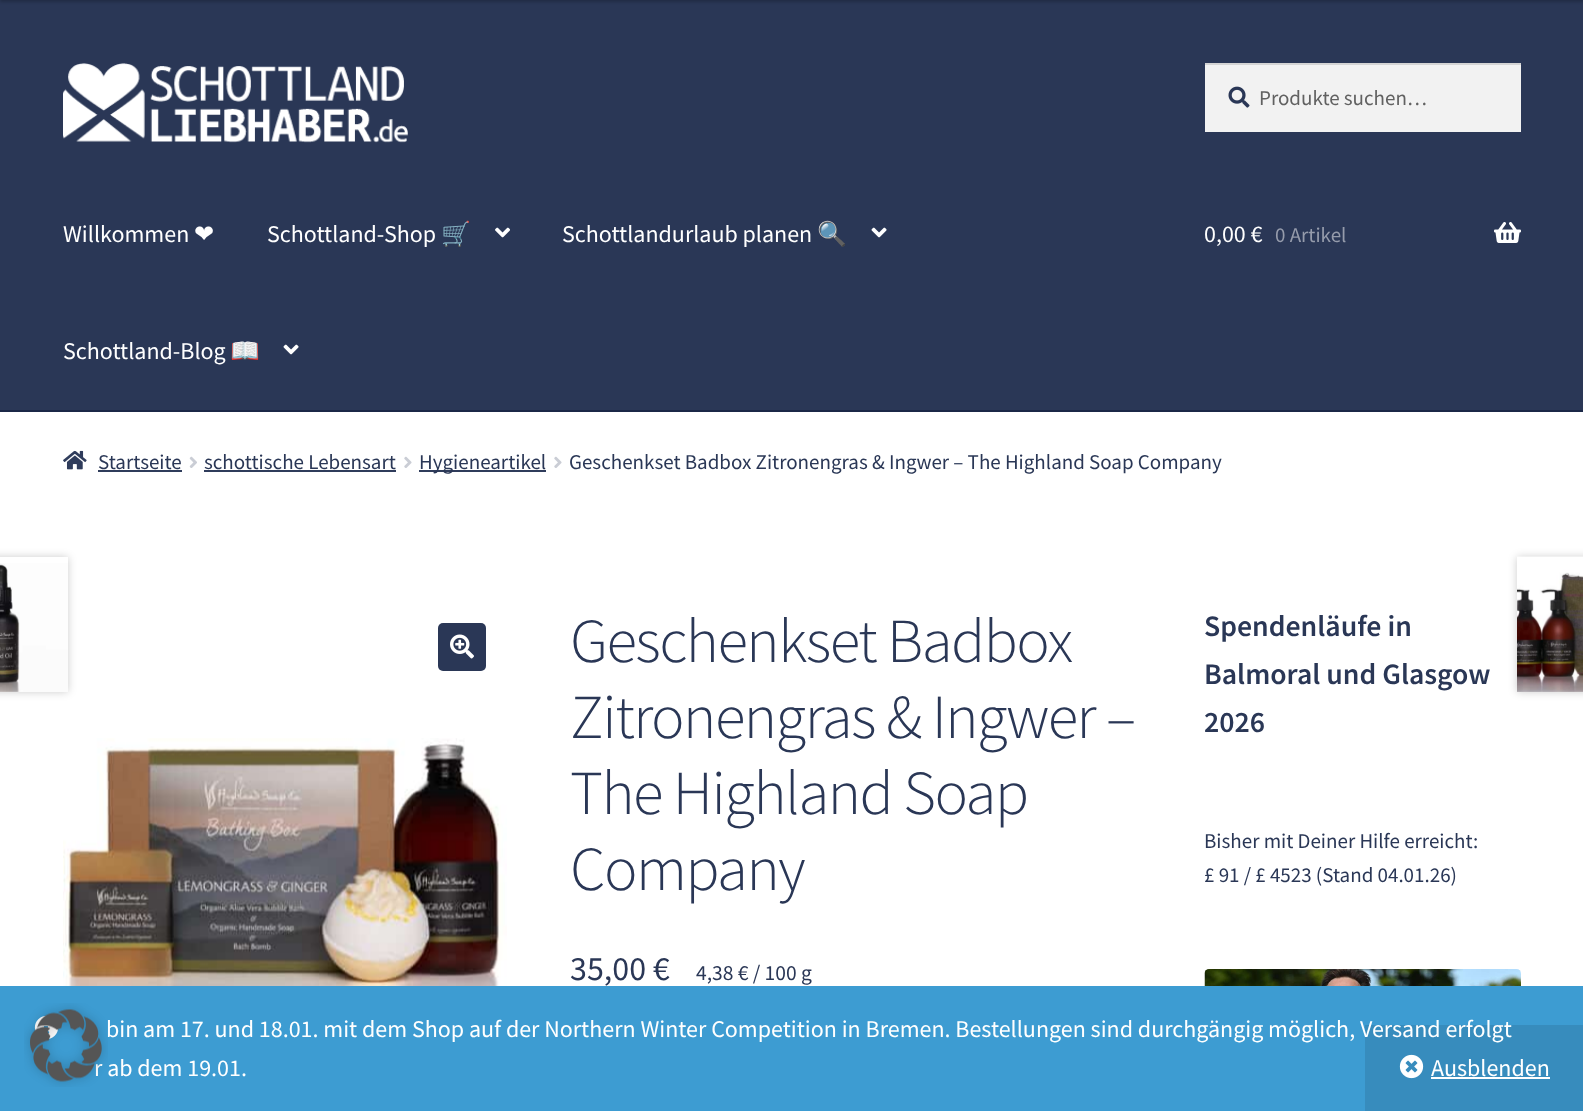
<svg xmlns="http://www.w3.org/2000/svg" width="1583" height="1111">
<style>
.a{font:21px Source Sans Pro;fill:#616161}
.b{font:24px Source Sans Pro;fill:#fff}
.c{font:24px DejaVu Sans;fill:#fff}
.d{font:24px Noto Color Emoji;fill:#fff}
.e{font:21px Source Sans Pro;fill:#959bab}
.f{font:21px Source Sans Pro;fill:#2a3756}
.g{font:300 62.75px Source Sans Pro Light;letter-spacing:-1.5px;fill:#2a3756}
.h{font:34px Source Sans Pro;fill:#2a3756}
.i{font:21.5px Source Sans Pro;fill:#2a3756}
.j{font:600 29.75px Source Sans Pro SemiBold;fill:#2a3756}
</style>
<rect width="100%" height="100%" fill="#fff"/>
<path fill="#2a3756" d="M0 0h1583v410H0z"/>
<path fill="#00000033" filter="blur(1.5px)" d="M0 -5h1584v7H0z"/>
<path fill="#1b2847" d="M0 410h1583v2H0z"/>
<image href="1.png" x="63" y="63" width="345" height="80"/>
<path fill="#f2f2f2" d="M1205 65h316v67H1205z"/>
<image href="2.png" x="1228" y="86" width="22" height="22"/>
<path fill="#d4d4d4" d="M1205 63h316v2H1205z"/>
<image href="3.png" x="495" y="227" width="15" height="11"/>
<image href="4.png" x="871" y="227" width="16" height="11"/>
<image href="4.png" x="283" y="344" width="16" height="11"/>
<image href="5.png" x="1494" y="222" width="27" height="21"/>
<image href="6.png" x="63" y="450" width="24" height="20"/>
<path fill="#2f3c5b" d="M98 470h84v2H98z"/>
<image href="7.png" x="189" y="456" width="8" height="12"/>
<path fill="#2f3c5b" d="M204 470h192v2H204z"/>
<image href="8.png" x="404" y="456" width="8" height="12"/>
<path fill="#2f3c5b" d="M419 470h127v2H419z"/>
<image href="8.png" x="554" y="456" width="8" height="12"/>
<path fill="#00000033" filter="blur(4px)" d="M-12 557h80v135H-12z"/>
<path fill="#fff" d="M0 557h68v135H0z"/>
<image href="9.png" x="0" y="563" width="68" height="129"/>
<path fill="#00000033" filter="blur(4px)" d="M1517 557h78v135H1517z"/>
<image href="10.png" x="1517" y="556" width="66" height="136"/>
<rect fill="#2a3756" x="438" y="623" width="48" height="48" rx="5"/>
<image href="11.png" x="450" y="634" width="24" height="25"/>
<image href="12.png" x="63" y="738" width="444" height="248"/>
<image href="13.png" x="1204" y="969" width="317" height="17"/>
<path fill="#3d9cd2" d="M0 986h1583v125H0z"/>
<image href="15.png" x="34" y="1015" width="25" height="24"/>
<path fill="#378cbd" d="M1365 1025h218v86H1365z"/>
<image href="16.png" x="1399" y="1054" width="25" height="25"/>
<path fill="#fff" d="M1431 1077h119v2H1431z"/>
<text class="a" x="1259" y="105">Produkte suchen…</text>
<text class="b" x="63" y="242">Willkommen</text>
<text class="c" x="194" y="242">❤</text>
<text class="b" x="267" y="242">Schottland-Shop</text>
<text class="d" x="441" y="242">🛒</text>
<text class="b" x="562" y="242">Schottlandurlaub planen</text>
<text class="d" x="817" y="242">🔍</text>
<text class="b" x="63" y="359">Schottland-Blog</text>
<text class="d" x="230" y="359">📖</text>
<text class="b" x="1204" y="242">0,00 €</text>
<text class="e" x="1275" y="242">0 Artikel</text>
<text class="f" x="98" y="469">Startseite</text>
<text class="f" x="204" y="469">schottische Lebensart</text>
<text class="f" x="419" y="469">Hygieneartikel</text>
<text class="f" x="569" y="469">Geschenkset Badbox Zitronengras &amp; Ingwer – The Highland Soap Company</text>
<text class="g" x="570" y="662">Geschenkset Badbox</text>
<text class="g" x="570" y="738">Zitronengras &amp; Ingwer –</text>
<text class="g" x="570" y="814">The Highland Soap</text>
<text class="g" x="570" y="890">Company</text>
<text class="h" x="570" y="980">35,00 €</text>
<text class="i" x="696" y="980">4,38 € / 100 g</text>
<text class="j" x="1204" y="636">Spendenläufe in</text>
<text class="j" x="1204" y="684">Balmoral und Glasgow</text>
<text class="j" x="1204" y="732">2026</text>
<text class="f" x="1204" y="848">Bisher mit Deiner Hilfe erreicht:</text>
<text class="f" x="1204" y="882">£ 91 / £ 4523 (Stand 04.01.26)</text>
<text class="b" x="106" y="1037">bin am 17. und 18.01. mit dem Shop auf der Northern Winter Competition in Bremen. Bestellungen sind durchgängig möglich, Versand erfolgt</text>
<text class="b" x="94" y="1076">r ab dem 19.01.</text>
<image href="14.png" x="24" y="1003" width="84" height="84"/>
<text class="b" x="1431" y="1076">Ausblenden</text>
</svg>
